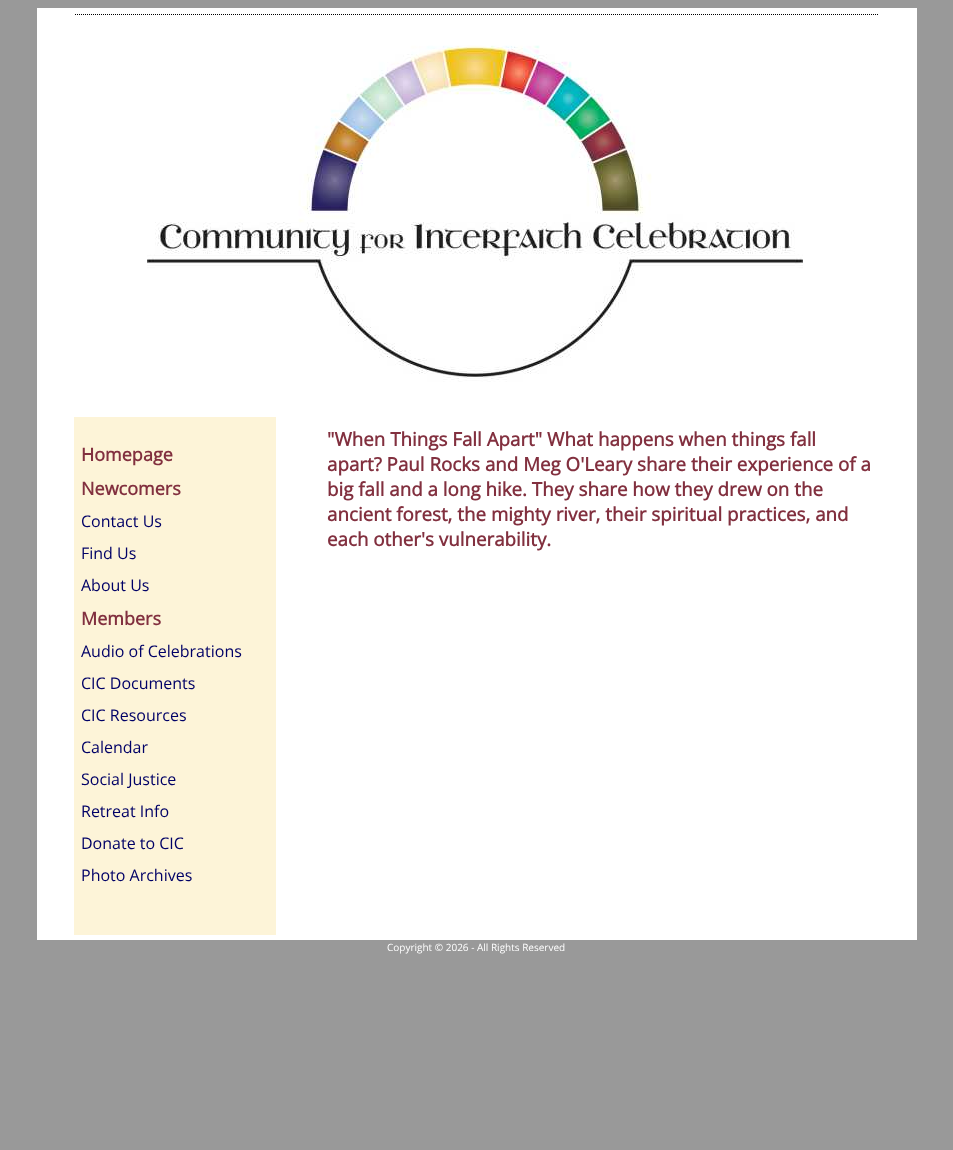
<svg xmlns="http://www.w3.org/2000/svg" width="953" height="1150">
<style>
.a{font:bold 18px Open Sans;fill:#82303f}
.b{font:16px Open Sans;fill:#006}
.c{font:bold 18.75px Open Sans;fill:#82303f}
.d{font:10px Open Sans;fill:#fff}
</style>
<rect width="100%" height="100%" fill="#999"/>
<path fill="#fff" d="M37 8h880v932H37z"/>
<path fill="none" stroke="#000" stroke-dasharray="1 1" d="M75 14.5h803"/>
<image href="1.png" x="147" y="45" width="656" height="337"/>
<path fill="#fdf4d8" d="M74 417h202v518H74z"/>
<text class="a" x="81" y="461">Homepage</text>
<text class="a" x="81" y="495">Newcomers</text>
<text class="b" x="81" y="527">Contact Us</text>
<text class="b" x="81" y="559">Find Us</text>
<text class="b" x="81" y="591">About Us</text>
<text class="a" x="81" y="625">Members</text>
<text class="b" x="81" y="657">Audio of Celebrations</text>
<text class="b" x="81" y="689">CIC Documents</text>
<text class="b" x="81" y="721">CIC Resources</text>
<text class="b" x="81" y="753">Calendar</text>
<text class="b" x="81" y="785">Social Justice</text>
<text class="b" x="81" y="817">Retreat Info</text>
<text class="b" x="81" y="849">Donate to CIC</text>
<text class="b" x="81" y="881">Photo Archives</text>
<text class="c" x="327" y="446">"When Things Fall Apart" What happens when things fall</text>
<text class="c" x="327" y="471">apart? Paul Rocks and Meg O'Leary share their experience of a</text>
<text class="c" x="327" y="496">big fall and a long hike. They share how they drew on the</text>
<text class="c" x="327" y="521">ancient forest, the mighty river, their spiritual practices, and</text>
<text class="c" x="327" y="546">each other's vulnerability.</text>
<text class="d" x="387" y="951">Copyright © 2026 - All Rights Reserved</text>
</svg>
